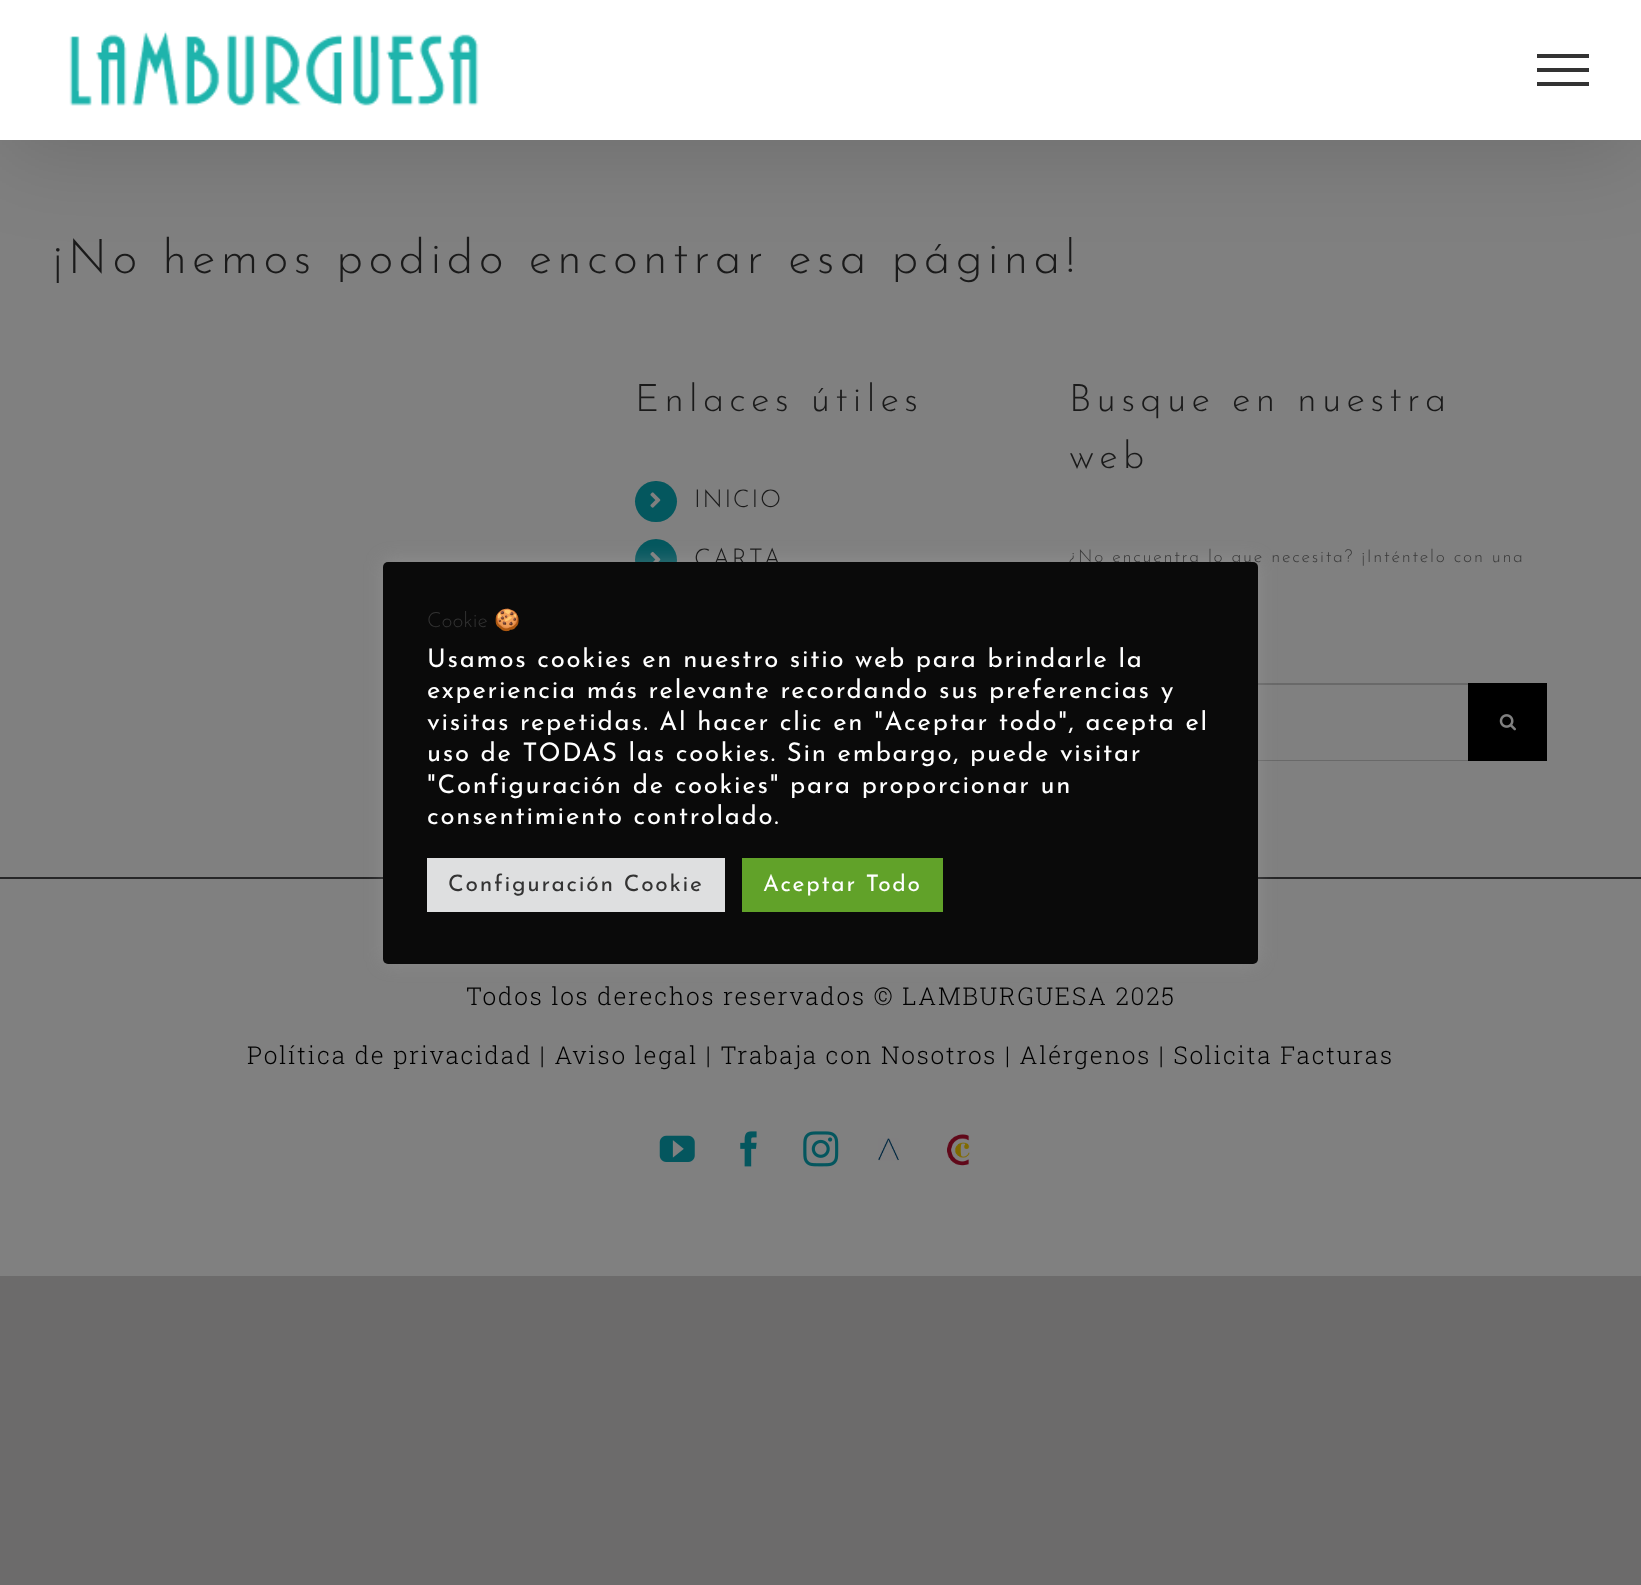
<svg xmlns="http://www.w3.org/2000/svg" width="1641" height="1585">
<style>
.a{font:300 47.8px Josefin Sans;letter-spacing:5.25px;fill:#1a1a1a}
.b{font:300 37.9px Josefin Sans;letter-spacing:5.25px;fill:#1a1a1a}
.c{font:300 24.5px Josefin Sans;letter-spacing:1.75px;fill:#1a1a1a}
.d{font:300 17.5px Josefin Sans;letter-spacing:1.75px;fill:#3a3a3a}
.e{font:300 24.5px Roboto Slab;letter-spacing:1.75px;fill:#000}
.f{font:300 21px Josefin Sans;fill:#333}
.g{font:21px Noto Color Emoji;fill:#333}
.h{font:25.7px Josefin Sans;letter-spacing:1.75px;fill:#fff}
.i{font:22.75px Josefin Sans;letter-spacing:1.75px;fill:#333}
.j{font:22.75px Josefin Sans;letter-spacing:1.75px;fill:#fff}
</style>
<rect width="100%" height="100%" fill="#6c6b6b"/>
<path fill="#808080" d="M0 140h1641v1136H0z"/>
<path fill="#00000024" filter="blur(44px)" d="M4 21h1634v133H4z"/>
<path fill="#fff" d="M0 0h1641v140H0z"/>
<image href="1.png" x="69" y="31" width="410" height="75"/>
<path fill="#333" d="M1537 54h52v4H1537z"/>
<path fill="#333" d="M1537 68h52v4H1537z"/>
<path fill="#333" d="M1537 82h52v4H1537z"/>
<rect fill="#04575e" x="635" y="481" width="42" height="41" rx="20.5"/>
<image href="2.png" x="650" y="492" width="11" height="16"/>
<circle fill="#04575e" cx="656" cy="560" r="21"/>
<image href="3.png" x="650" y="551" width="11" height="11"/>
<path fill="#696969" d="M1258 683h210v2H1258z"/>
<path fill="#696969" d="M1258 760h210v1H1258z"/>
<path fill="#000" d="M1468 683h79v78H1468z"/>
<image href="4.png" x="1499" y="714" width="17" height="17"/>
<path fill="#262627" d="M0 877h1641v2H0z"/>
<image href="5.png" x="659" y="1135" width="36" height="27"/>
<image href="6.png" x="740" y="1131" width="17" height="36"/>
<image href="7.png" x="803" y="1131" width="36" height="36"/>
<image href="8.png" x="878" y="1138" width="21" height="23"/>
<image href="9.png" x="947" y="1134" width="23" height="32"/>
<rect fill="#acabab4d" filter="blur(9px)" x="383" y="560" width="875" height="403" rx="5"/>
<text class="a" x="53" y="273">¡No hemos podido encontrar esa página!</text>
<text class="b" x="635" y="411">Enlaces útiles</text>
<text class="c" x="694" y="507">INICIO</text>
<text class="c" x="694" y="566">CARTA</text>
<text class="b" x="1069" y="411">Busque en nuestra</text>
<text class="b" x="1069" y="468">web</text>
<text class="d" x="1069" y="562">¿No encuentra lo que necesita? ¡Inténtelo con una</text>
<text class="e" x="466" y="1005">Todos los derechos reservados © LAMBURGUESA 2025</text>
<text class="e" x="247" y="1064">Política de privacidad | Aviso legal | Trabaja con Nosotros | Alérgenos | Solicita Facturas</text>
<rect fill="#0a0a0a" x="383" y="562" width="875" height="402" rx="5"/>
<text class="f" x="427" y="627">Cookie</text>
<text class="g" x="494" y="627">🍪</text>
<text class="h" x="427" y="667">Usamos cookies en nuestro sitio web para brindarle la</text>
<text class="h" x="427" y="698">experiencia más relevante recordando sus preferencias y</text>
<text class="h" x="427" y="730">visitas repetidas. Al hacer clic en "Aceptar todo", acepta el</text>
<text class="h" x="427" y="761">uso de TODAS las cookies. Sin embargo, puede visitar</text>
<text class="h" x="427" y="793">"Configuración de cookies" para proporcionar un</text>
<text class="h" x="427" y="824">consentimiento controlado.</text>
<path fill="#dedfe0" d="M427 858h298v54H427z"/>
<text class="i" x="448" y="891">Configuración Cookie</text>
<path fill="#61a229" d="M742 858h201v54H742z"/>
<text class="j" x="763" y="891">Aceptar Todo</text>
</svg>
